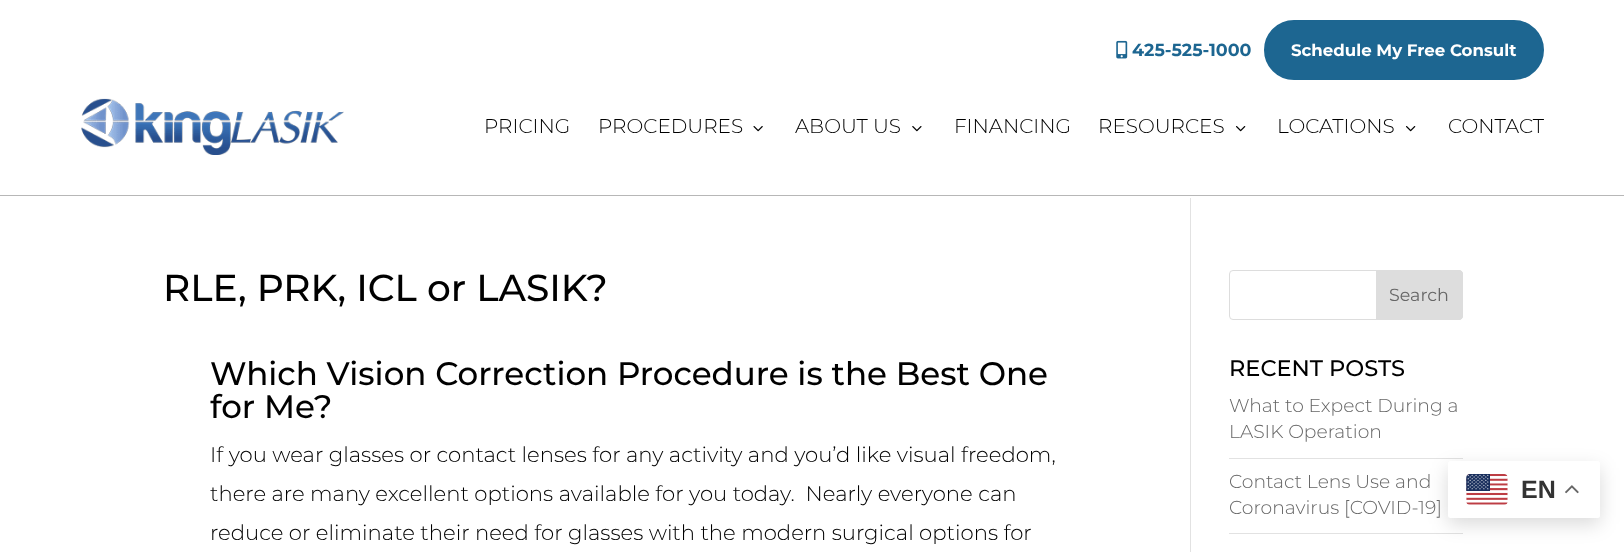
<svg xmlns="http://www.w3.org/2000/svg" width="1624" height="552">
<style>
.a{font:100 17.5px 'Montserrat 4';fill:#1d6691}
.b{font:100 16.6px 'Montserrat 4';fill:#fff}
.c{font:100 20px 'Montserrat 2';fill:#000}
.d{font:100 37.5px Montserrat;fill:#000}
.e{font:100 32.5px Montserrat;fill:#000}
.f{font:100 21.2px 'Montserrat 2';fill:#000}
.g{font:100 17.5px 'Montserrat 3';fill:#666}
.h{font:100 22.5px Montserrat;fill:#000}
.i{font:100 18.75px 'Montserrat 2';fill:#666}
.j{font:bold 25px Liberation Sans;fill:#333}
</style>
<rect width="100%" height="100%" fill="#fff"/>
<path fill="#b7b7b7" d="M0 195h1624v1H0z"/>
<image href="1.png" x="1116" y="40" width="12" height="19"/>
<rect fill="#1d6691" stroke="#1d6691" stroke-width="3" x="1265.5" y="21.5" width="277" height="57" rx="28.5"/>
<image href="2.png" x="81" y="98" width="263" height="57"/>
<image href="3.png" x="753" y="126" width="10" height="6"/>
<image href="4.png" x="912" y="126" width="10" height="6"/>
<image href="5.png" x="1236" y="126" width="10" height="6"/>
<image href="5.png" x="1406" y="126" width="10" height="6"/>
<path fill="#e2e2e2" d="M1190 198h1v354H1190z"/>
<rect fill="none" stroke="#ddd" x="1229.5" y="270.5" width="233" height="49" rx="3.5"/>
<path fill="#ddd" stroke="#ddd" d="M1376.5 270.5h82.5c2 0 3.5 1.5 3.5 3.5v42c0 2-1.5 3.5-3.5 3.5h-82.5z"/>
<path fill="#e2e2e2" d="M1229 458h234v1H1229z"/>
<path fill="#e2e2e2" d="M1229 533h234v1H1229z"/>
<rect fill="#00000026" filter="blur(9.5px)" x="1448" y="468" width="152" height="56" rx="2.5"/>
<rect fill="#fff" x="1448" y="461" width="152" height="57" rx="2.5"/>
<image href="6.png" x="1466" y="474" width="42" height="31"/>
<image href="7.png" x="1565" y="485" width="14" height="9"/>
<text class="a" x="1132" y="56">425-525-1000</text>
<text class="b" x="1291" y="56">Schedule My Free Consult</text>
<text class="c" x="484" y="133">PRICING</text>
<text class="c" x="598" y="133">PROCEDURES</text>
<text class="c" x="795" y="133">ABOUT US</text>
<text class="c" x="954" y="133">FINANCING</text>
<text class="c" x="1098" y="133">RESOURCES</text>
<text class="c" x="1277" y="133">LOCATIONS</text>
<text class="c" x="1448" y="133">CONTACT</text>
<text class="d" x="163" y="301">RLE, PRK, ICL or LASIK?</text>
<text class="e" x="210" y="385">Which Vision Correction Procedure is the Best One</text>
<text class="e" x="210" y="418">for Me?</text>
<text class="f" x="210" y="462">If you wear glasses or contact lenses for any activity and you’d like visual freedom,</text>
<text class="f" xml:space="preserve" x="210" y="501">there are many excellent options available for you today.  Nearly everyone can</text>
<text class="f" x="210" y="540">reduce or eliminate their need for glasses with the modern surgical options for</text>
<text class="g" x="1389" y="301">Search</text>
<text class="h" x="1229" y="376">RECENT POSTS</text>
<text class="i" x="1229" y="412">What to Expect During a</text>
<text class="i" x="1229" y="438">LASIK Operation</text>
<text class="i" x="1229" y="488">Contact Lens Use and</text>
<text class="i" x="1229" y="514">Coronavirus [COVID-19]</text>
<text class="j" x="1521" y="498">EN</text>
</svg>
